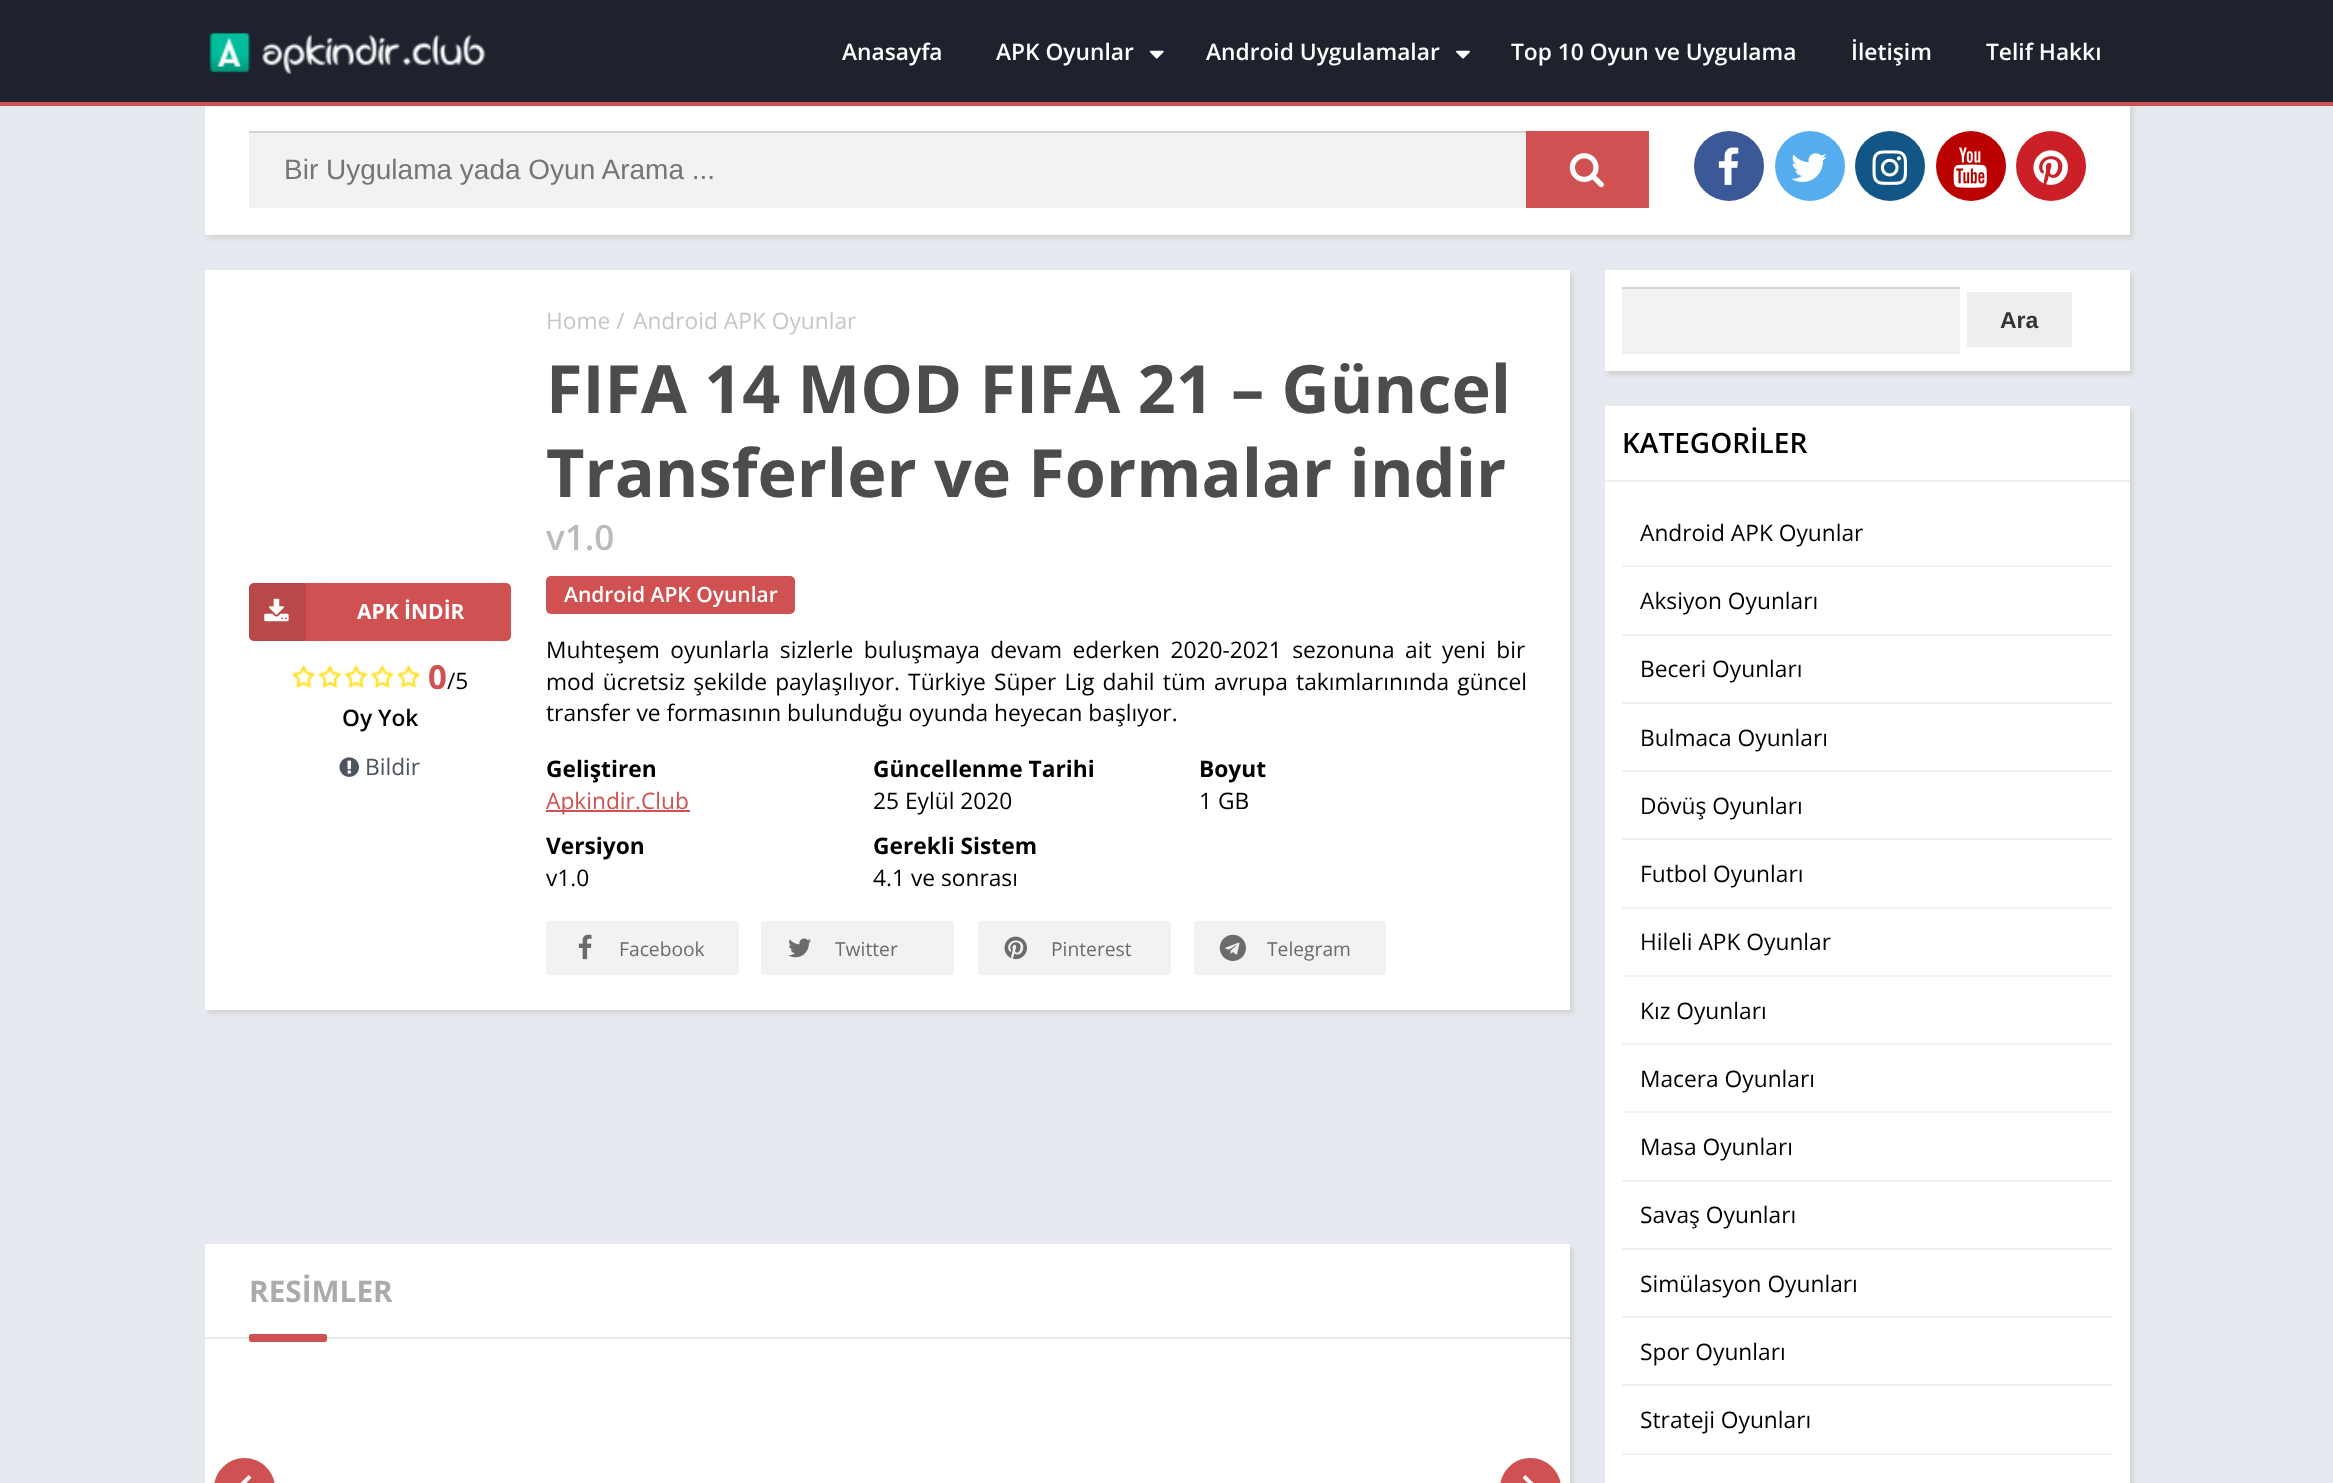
<svg xmlns="http://www.w3.org/2000/svg" width="2333" height="1483">
<style>
.a{font:600 22.75px Open Sans;fill:#fff}
.b{font:28px Liberation Sans;fill:#757575}
.c{font:bold 21px Open Sans;fill:#fff}
.d{font:bold 33px Open Sans;fill:#d05151}
.e{font:22.75px Open Sans;fill:#000}
.f{font:600 22.75px Open Sans;fill:#000}
.g{font:22.75px Open Sans;fill:#4d535f}
.h{font:22.75px Open Sans;fill:#c6c6c6}
.i{font:bold 66.5px Open Sans;fill:#4c4c4c}
.j{font:600 35px Open Sans;fill:#bbb}
.k{font:600 21px Open Sans;fill:#fff}
.l{font:bold 22.75px Open Sans;fill:#000}
.m{font:22.75px Open Sans;fill:#d05151}
.n{font:19.25px Open Sans;fill:#6b6b6b}
.o{font:bold 29.75px Open Sans;fill:#ababab}
.p{font:bold 23px Liberation Sans;fill:#333}
.q{font:600 28px Open Sans;fill:#000}
</style>
<rect width="100%" height="100%" fill="#e6e9ef"/>
<path fill="#d2d1d1" filter="blur(2px)" d="M208 4h1925v234H208z"/>
<path fill="#1d222d" d="M0 0h2333v102H0z"/>
<path fill="#d05151" d="M0 102h2333v4H0z"/>
<image href="1.png" x="209" y="32" width="277" height="42"/>
<image href="2.png" x="1149" y="50" width="15" height="9"/>
<image href="3.png" x="1456" y="50" width="14" height="9"/>
<path fill="#fff" d="M205 106h1925v129H205z"/>
<path fill="#f2f2f2" d="M249 133h1277v75H249z"/>
<path fill="#d4d4d4" d="M249 131h1277v2H249z"/>
<path fill="#d05151" d="M1526 131h123v77H1526z"/>
<image href="4.png" x="1569" y="153" width="35" height="35"/>
<circle fill="#3b5998" cx="1729" cy="166" r="35"/>
<image href="5.png" x="1718" y="147" width="21" height="38"/>
<circle fill="#55acee" cx="1810" cy="166" r="35"/>
<image href="6.png" x="1791" y="153" width="36" height="29"/>
<circle fill="#125688" cx="1890" cy="166" r="35"/>
<image href="7.png" x="1872" y="150" width="35" height="35"/>
<circle fill="#b00" cx="1971" cy="166" r="35"/>
<image href="8.png" x="1953" y="147" width="34" height="41"/>
<circle fill="#cb2027" cx="2051" cy="166" r="35"/>
<image href="9.png" x="2033" y="150" width="35" height="35"/>
<path fill="#d2d1d1" filter="blur(2px)" d="M208 273h1365v740H208z"/>
<path fill="#fff" d="M205 270h1365v740H205z"/>
<rect fill="#d05151" x="249" y="583" width="262" height="58" rx="5"/>
<path fill="#0000001a" d="M254 583h52v58h-52c-3 0-5-2-5-5v-48c0-3 2-5 5-5z"/>
<image href="10.png" x="264" y="598" width="25" height="24"/>
<image href="11.png" x="291" y="664" width="130" height="25"/>
<image href="12.png" x="339" y="757" width="20" height="20"/>
<rect fill="#d05151" x="546" y="576" width="249" height="38" rx="5"/>
<path fill="#d05151" d="M546 810h144v2H546z"/>
<rect fill="#f2f2f2" x="546" y="921" width="193" height="54" rx="4"/>
<image href="13.png" x="578" y="934" width="14" height="26"/>
<rect fill="#f2f2f2" x="761" y="921" width="193" height="54" rx="4"/>
<image href="14.png" x="788" y="938" width="23" height="20"/>
<rect fill="#f2f2f2" x="978" y="921" width="193" height="54" rx="4"/>
<image href="15.png" x="1004" y="936" width="23" height="24"/>
<rect fill="#f2f2f2" x="1194" y="921" width="192" height="54" rx="4"/>
<image href="16.png" x="1219" y="934" width="27" height="27"/>
<path fill="#d2d1d1" filter="blur(2px)" d="M208 1248h1365v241H208z"/>
<path fill="#fff" d="M205 1244h1365v239H205z"/>
<path fill="#eaeaea" d="M205 1337h1365v2H205z"/>
<rect fill="#d05151" x="249" y="1334" width="78" height="8" rx="2"/>
<circle fill="#d05151" stroke="#fff" stroke-width="9" cx="244.5" cy="1488.5" r="35"/>
<image href="17.png" x="240" y="1475" width="12" height="8"/>
<circle fill="#d05151" stroke="#fff" stroke-width="9" cx="1530.5" cy="1488.5" r="35"/>
<image href="18.png" x="1522" y="1475" width="12" height="8"/>
<path fill="#d2d1d1" filter="blur(2px)" d="M1608 273h525v102H1608z"/>
<path fill="#fff" d="M1605 270h525v101H1605z"/>
<path fill="#f2f2f2" d="M1622 289h338v65H1622z"/>
<path fill="#d4d4d4" d="M1622 287h338v2H1622z"/>
<path fill="#eee" d="M1967 292h105v55H1967z"/>
<path fill="#d2d1d1" filter="blur(2px)" d="M1608 410h525v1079H1608z"/>
<path fill="#fff" d="M1605 406h525v1077H1605z"/>
<path fill="#f2f2f2" d="M1605 480h525v2H1605z"/>
<path fill="#f2f2f2" d="M1622 565h490v2H1622z"/>
<path fill="#f2f2f2" d="M1622 634h490v2H1622z"/>
<path fill="#f2f2f2" d="M1622 702h490v2H1622z"/>
<path fill="#f2f2f2" d="M1622 770h490v2H1622z"/>
<path fill="#f2f2f2" d="M1622 838h490v2H1622z"/>
<path fill="#f2f2f2" d="M1622 907h490v2H1622z"/>
<path fill="#f2f2f2" d="M1622 975h490v2H1622z"/>
<path fill="#f2f2f2" d="M1622 1043h490v2H1622z"/>
<path fill="#f2f2f2" d="M1622 1111h490v2H1622z"/>
<path fill="#f2f2f2" d="M1622 1180h490v2H1622z"/>
<path fill="#f2f2f2" d="M1622 1248h490v2H1622z"/>
<path fill="#f2f2f2" d="M1622 1316h490v2H1622z"/>
<path fill="#f2f2f2" d="M1622 1384h490v2H1622z"/>
<path fill="#f2f2f2" d="M1622 1453h490v2H1622z"/>
<text class="a" x="842" y="60">Anasayfa</text>
<text class="a" x="996" y="60">APK Oyunlar</text>
<text class="a" x="1206" y="60">Android Uygulamalar</text>
<text class="a" x="1511" y="60">Top 10 Oyun ve Uygulama</text>
<text class="a" x="1851" y="60">İletişim</text>
<text class="a" x="1986" y="60">Telif Hakkı</text>
<text class="b" x="284" y="179">Bir Uygulama yada Oyun Arama ...</text>
<text class="c" x="357" y="619">APK İNDİR</text>
<text class="d" x="428" y="689">0</text>
<text class="e" x="447" y="689">/5</text>
<text class="f" x="342" y="726">Oy Yok</text>
<text class="g" x="365" y="775">Bildir</text>
<text class="h" x="546" y="329">Home /</text>
<text class="h" x="633" y="329">Android APK Oyunlar</text>
<text class="i" x="546" y="413">FIFA 14 MOD FIFA 21 – Güncel</text>
<text class="i" x="546" y="497">Transferler ve Formalar indir</text>
<text class="j" x="546" y="550">v1.0</text>
<text class="k" x="564" y="602">Android APK Oyunlar</text>
<text class="e" x="546" y="658" word-spacing="4.5">Muhteşem oyunlarla sizlerle buluşmaya devam ederken 2020-2021 sezonuna ait yeni bir</text>
<text class="e" x="546" y="690" word-spacing="2.25">mod ücretsiz şekilde paylaşılıyor. Türkiye Süper Lig dahil tüm avrupa takımlarınında güncel</text>
<text class="e" x="546" y="721">transfer ve formasının bulunduğu oyunda heyecan başlıyor.</text>
<text class="l" x="546" y="777">Geliştiren</text>
<text class="m" x="546" y="809">Apkindir.Club</text>
<text class="l" x="546" y="854">Versiyon</text>
<text class="e" x="546" y="886">v1.0</text>
<text class="l" x="873" y="777">Güncellenme Tarihi</text>
<text class="e" x="873" y="809">25 Eylül 2020</text>
<text class="l" x="873" y="854">Gerekli Sistem</text>
<text class="e" x="873" y="886">4.1 ve sonrası</text>
<text class="l" x="1199" y="777">Boyut</text>
<text class="e" x="1199" y="809">1 GB</text>
<text class="n" x="619" y="956">Facebook</text>
<text class="n" x="835" y="956">Twitter</text>
<text class="n" x="1051" y="956">Pinterest</text>
<text class="n" x="1267" y="956">Telegram</text>
<text class="o" x="249" y="1302">RESİMLER</text>
<text class="p" x="2000" y="328">Ara</text>
<text class="q" x="1622" y="453">KATEGORİLER</text>
<text class="e" x="1640" y="541">Android APK Oyunlar</text>
<text class="e" x="1640" y="609">Aksiyon Oyunları</text>
<text class="e" x="1640" y="677">Beceri Oyunları</text>
<text class="e" x="1640" y="746">Bulmaca Oyunları</text>
<text class="e" x="1640" y="814">Dövüş Oyunları</text>
<text class="e" x="1640" y="882">Futbol Oyunları</text>
<text class="e" x="1640" y="950">Hileli APK Oyunlar</text>
<text class="e" x="1640" y="1019">Kız Oyunları</text>
<text class="e" x="1640" y="1087">Macera Oyunları</text>
<text class="e" x="1640" y="1155">Masa Oyunları</text>
<text class="e" x="1640" y="1223">Savaş Oyunları</text>
<text class="e" x="1640" y="1292">Simülasyon Oyunları</text>
<text class="e" x="1640" y="1360">Spor Oyunları</text>
<text class="e" x="1640" y="1428">Strateji Oyunları</text>
</svg>
